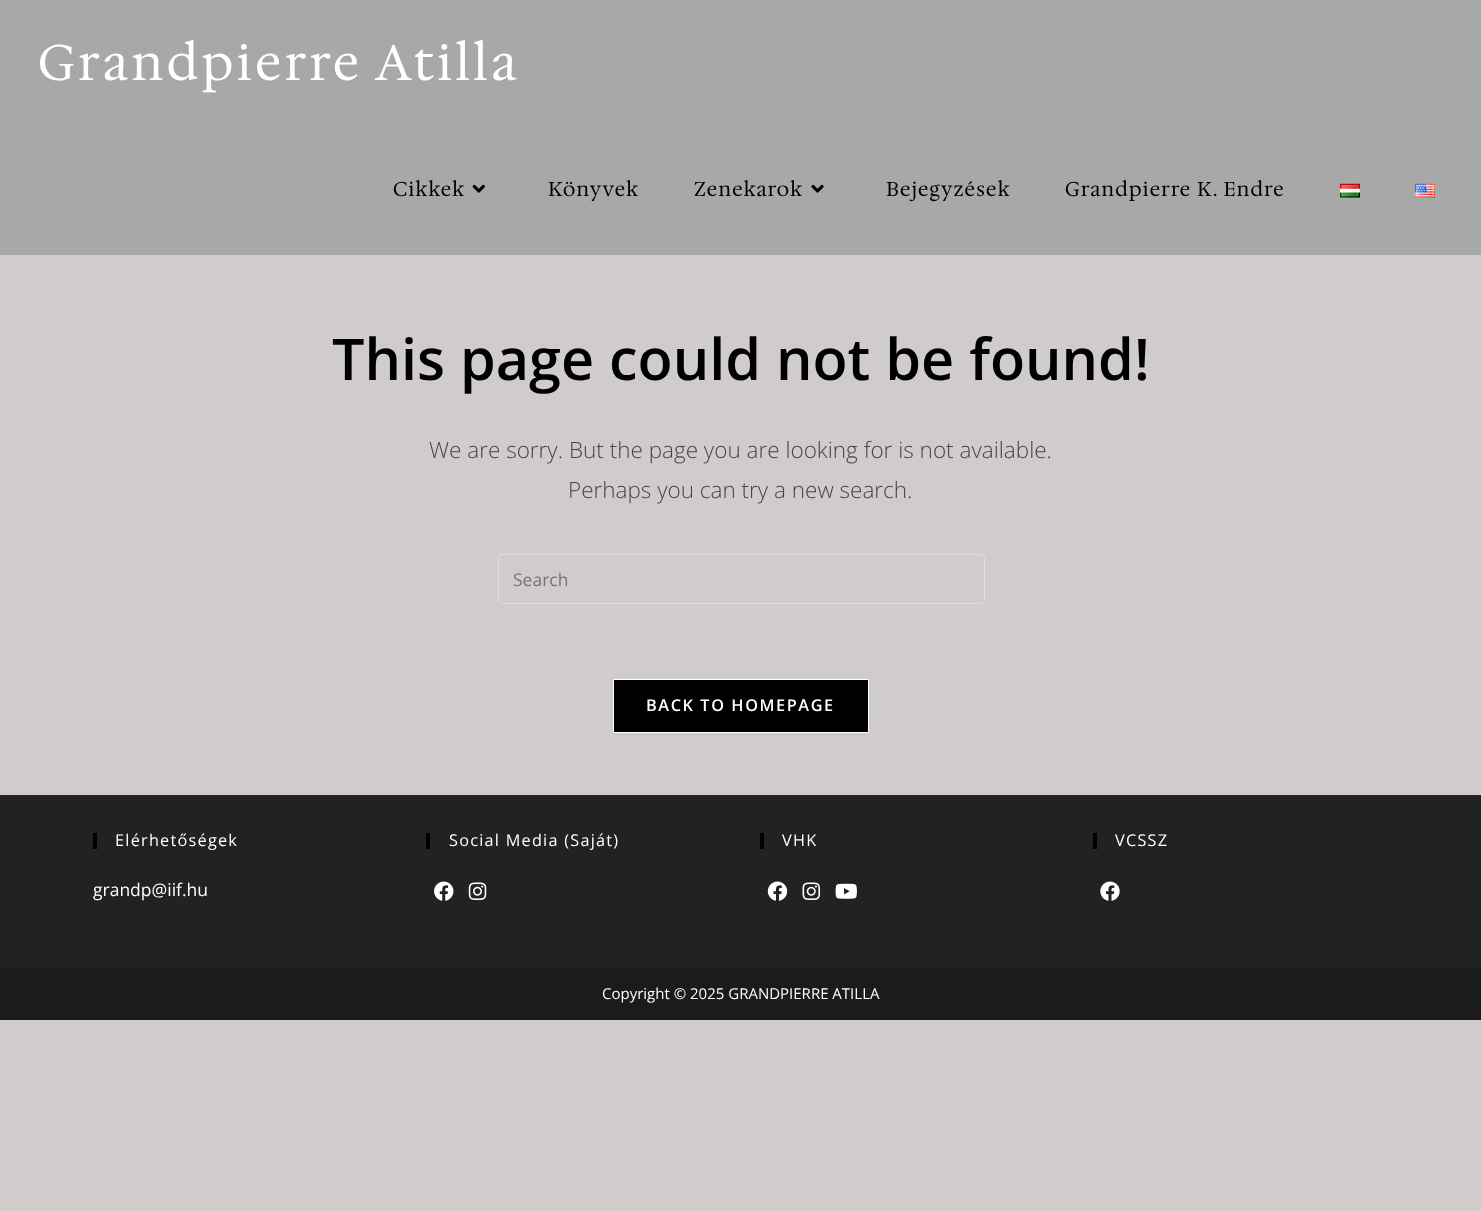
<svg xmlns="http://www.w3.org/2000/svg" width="1481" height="1211">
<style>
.a{font:50px Hedvig Letters Serif;letter-spacing:3.9px;fill:#fff}
.b{font:20px Hedvig Letters Serif;letter-spacing:1.25px;fill:#000}
.c{font:600 57.5px Open Sans;fill:#000}
.d{font:300 22.5px Open Sans;fill:#464646}
.e{font:17.5px Open Sans;fill:#757575}
.f{font:600 16.25px Open Sans;letter-spacing:1.6px;fill:#fff}
.g{font:16.25px Open Sans;letter-spacing:1.25px;fill:#fff}
.h{font:17.5px Open Sans;fill:#fff}
.i{font:15px Open Sans;fill:#fff}
</style>
<rect width="100%" height="100%" fill="#d0cccc"/>
<path fill="#a8a8a8" d="M0 0h1481v255H0z"/>
<image href="1.png" x="472" y="184" width="13" height="9"/>
<image href="2.png" x="811" y="184" width="13" height="9"/>
<image href="3.png" x="1340" y="183" width="20" height="15"/>
<image href="4.png" x="1415" y="183" width="20" height="15"/>
<rect fill="none" stroke="#ddd" x="498.5" y="554.5" width="486" height="49" rx="3.5"/>
<path fill="#000" stroke="#fff" d="M613.5 679.5h255v53H613.5z"/>
<path fill="#222" d="M0 795h1481v173H0z"/>
<path fill="#000" d="M93 833h4v16H93z"/>
<path fill="#000" d="M426 833h4v16H426z"/>
<image href="5.png" x="434" y="881" width="20" height="20"/>
<image href="6.png" x="468" y="882" width="19" height="18"/>
<path fill="#000" d="M760 833h4v16H760z"/>
<image href="7.png" x="767" y="881" width="21" height="20"/>
<image href="8.png" x="802" y="882" width="19" height="18"/>
<image href="9.png" x="835" y="883" width="22" height="16"/>
<path fill="#000" d="M1093 833h4v16H1093z"/>
<image href="10.png" x="1100" y="881" width="20" height="20"/>
<path fill="#1b1b1b" d="M0 968h1481v52H0z"/>
<text class="a" x="38" y="80">Grandpierre Atilla</text>
<text class="b" x="393" y="196">Cikkek</text>
<text class="b" x="548" y="196">Könyvek</text>
<text class="b" x="694" y="196">Zenekarok</text>
<text class="b" x="886" y="196">Bejegyzések</text>
<text class="b" x="1065" y="196">Grandpierre K. Endre</text>
<text class="c" x="332" y="380">This page could not be found!</text>
<text class="d" x="429" y="458">We are sorry. But the page you are looking for is not available.</text>
<text class="d" x="568" y="498">Perhaps you can try a new search.</text>
<text class="e" x="513" y="586">Search</text>
<text class="f" x="646" y="711">BACK TO HOMEPAGE</text>
<text class="g" x="115" y="846">Elérhetőségek</text>
<text class="h" x="93" y="896">grandp@iif.hu</text>
<text class="g" x="449" y="846">Social Media (Saját)</text>
<text class="g" x="782" y="846">VHK</text>
<text class="g" x="1115" y="846">VCSSZ</text>
<text class="i" x="602" y="999">Copyright © 2025 GRANDPIERRE ATILLA</text>
</svg>
